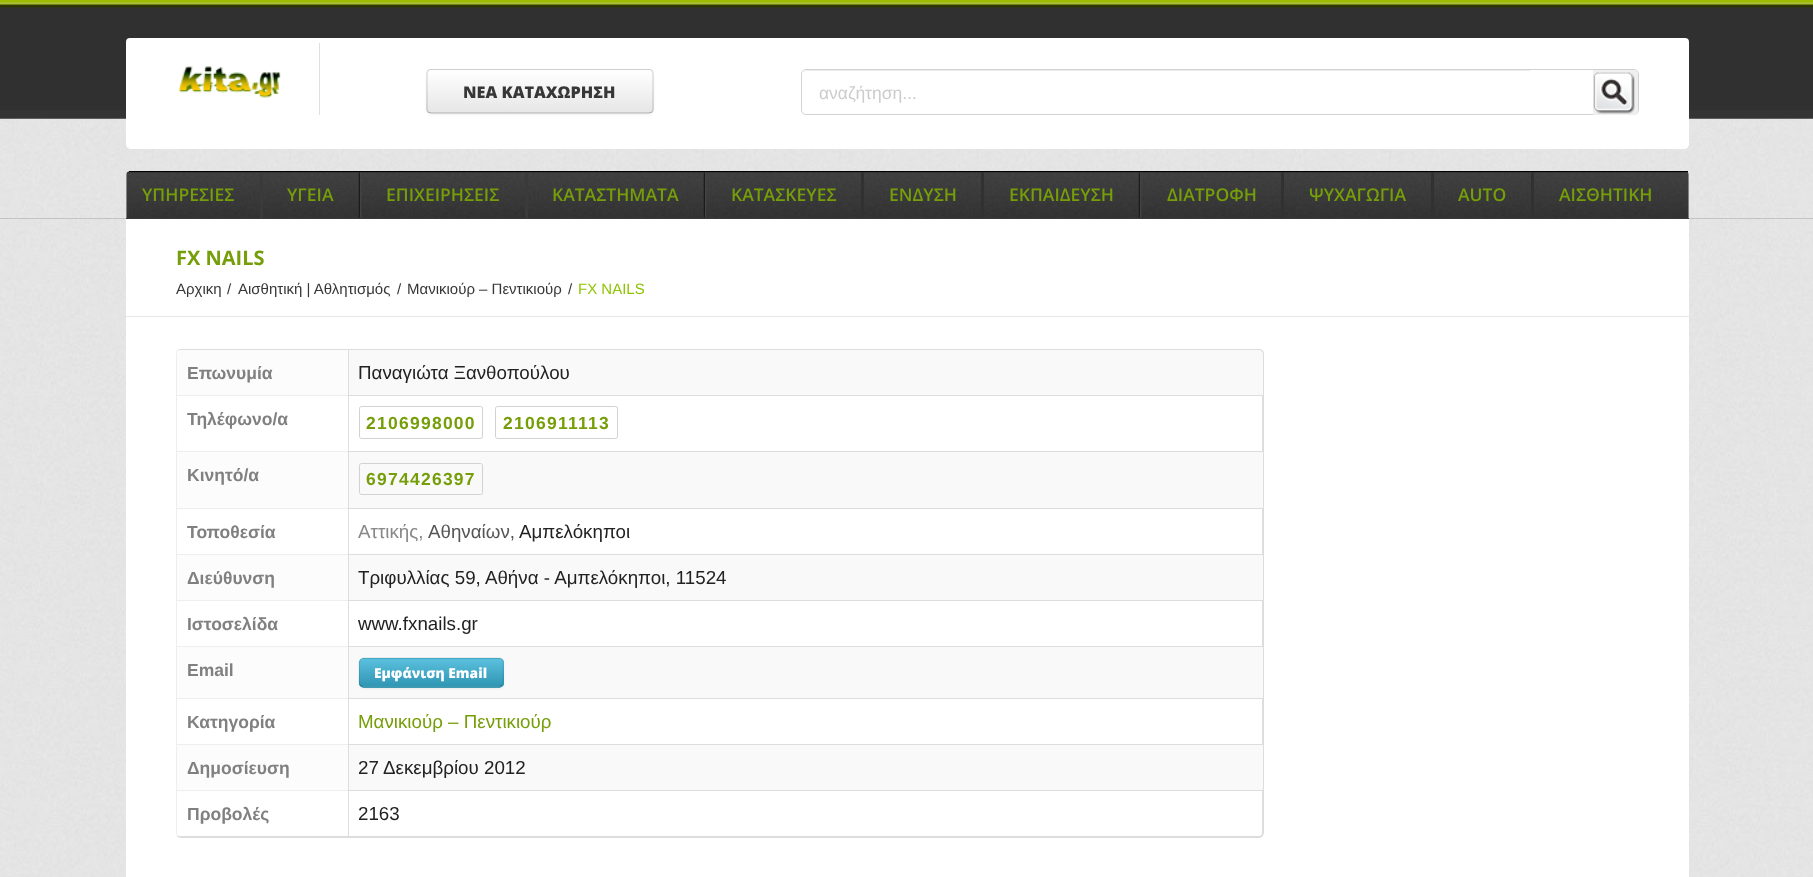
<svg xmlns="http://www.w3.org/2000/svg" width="1813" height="877">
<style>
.a{font:800 16.25px Open Sans;fill:#373737}
.b{font:17.5px Liberation Sans;fill:#ccc}
.c{font:600 17.5px Open Sans;fill:#769e09}
.d{font:bold 20px Open Sans;fill:#769e09}
.e{font:15px Liberation Sans;fill:#373737}
.f{font:15px Liberation Sans;fill:#8fc400}
.g{font:bold 17.5px Liberation Sans;fill:#808080}
.h{font:18.75px Liberation Sans;fill:#222}
.i{font:bold 17.5px Liberation Sans;letter-spacing:1.25px;fill:#769e09}
.j{font:18.75px Liberation Sans;fill:#888}
.k{font:18.75px Liberation Sans;fill:#555}
.l{font:800 13.75px Open Sans;fill:#fff}
.m{font:18.75px Liberation Sans;fill:#769e09}
</style>
<defs>
<clipPath id="clip1"><rect x="426" y="69" width="228" height="45" rx="5"/></clipPath>
<linearGradient id="g1" gradientUnits="userSpaceOnUse" x1="540" y1="70" x2="540" y2="113"><stop offset="0" stop-color="#fff"/><stop offset="1" stop-color="#e6e6e6"/></linearGradient>
<clipPath id="clip2"><rect x="359" y="658" width="145" height="30" rx="5"/></clipPath>
<linearGradient id="g2" gradientUnits="userSpaceOnUse" x1="431" y1="659" x2="431" y2="686"><stop offset="0" stop-color="#5bc0de"/><stop offset="1" stop-color="#2f96b4"/></linearGradient>
</defs>
<rect width="100%" height="100%" fill="#fff"/>
<image href="1.png" x="0" y="218" width="1813" height="1"/>
<image href="2.png" x="0" y="118" width="1813" height="101"/>
<image href="3.png" x="0" y="0" width="1813" height="119"/>
<rect fill="#0000004d" filter="blur(0.5px)" x="126" y="38" width="1563" height="111" rx="4"/>
<rect fill="#fff" x="126" y="38" width="1563" height="111" rx="4"/>
<path fill="#dfdfdf" d="M319 43h1v72H319z"/>
<image href="4.png" x="178" y="66" width="103" height="32"/>
<rect fill="#0000000d" filter="blur(1px)" x="426" y="70" width="228" height="45" rx="5"/>
<rect fill="#f5f5f5" x="426" y="69" width="228" height="45" rx="5"/>
<g clip-path="url(#clip1)">
<path fill="url(#g1)" d="M426 70h228v43H426z"/>
</g>
<path fill="none" stroke="#00000040" stroke-width="1.2" d="M652 112l-3 1h-218l-3-1"/>
<path fill="none" stroke="#00000026" stroke-width="1.2" d="M428 112c-.5-1-1-2-1-3v-35c0-1.5 .5-2.5 1-3.5c1-.5 2-1 3-1h218c1 0 2 .5 3 1c.5 1 1 2 1 3.5v35c0 1-.5 2-1 3"/>
<rect fill="none" stroke="#d2d2d2" x="801.5" y="69.5" width="837" height="45" rx="4.5"/>
<path fill="#ececec" d="M806 71h724v-1h-723c-1 0-3 1-3 2z"/>
<path fill="#efefef" d="M1593 70h41c2 0 4 2 4 4v37c0 2-2 4-4 4h-41z"/>
<image href="5.png" x="1593" y="72" width="42" height="42"/>
<image href="6.png" x="126" y="171" width="1563" height="47"/>
<path fill="#000" d="M129 171h1559v1H129z"/>
<path fill="#000" d="M126 218h1563v1H126z"/>
<path fill="#3a3a3a" d="M260 172h3v46H260z"/>
<image href="7.png" x="358" y="172" width="4" height="46"/>
<path fill="#3a3a3a" d="M525 172h3v46H525z"/>
<image href="8.png" x="703" y="172" width="4" height="46"/>
<path fill="#313131" d="M861 172h3v46H861z"/>
<path fill="#313131" d="M981 172h3v46H981z"/>
<image href="9.png" x="1138" y="172" width="4" height="46"/>
<path fill="#313131" d="M1281 172h3v46H1281z"/>
<path fill="#313131" d="M1431 172h3v46H1431z"/>
<path fill="#313131" d="M1531 172h3v46H1531z"/>
<image href="10.png" x="0" y="218" width="1813" height="659"/>
<rect fill="#0000004d" filter="blur(0.5px)" x="126" y="219" width="1563" height="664" rx="4"/>
<path fill="#fff" d="M126 219h1563v658H126z"/>
<path fill="#e7e7e7" d="M126 316h1563v1H126z"/>
<path fill="#ddd" fill-rule="evenodd" d="M181 349h1078c3 0 5 2 5 5v478c0 3-2 6-5 6h-1078c-3 0-5-3-5-6v-478c0-3 2-5 5-5zm0 1h1078c2 0 3 2 3 4v478c0 3-1 4-3 4h-1078c-3 0-5-1-5-4v-478c0-2 2-4 5-4z"/>
<path fill="#f9f9f980" d="M181 350h167v45h-172v-40c0-3 2-5 5-5z"/>
<path fill="#eee" d="M176 353h1v42H176z"/>
<path fill="#f9f9f9" d="M348 350h910c3 0 5 2 5 5v40h-915z"/>
<path fill="#ddd" d="M348 350h1v45H348z"/>
<path fill="#eee" d="M176 395h172v1H176z"/>
<path fill="#eee" d="M176 395h1v56H176z"/>
<path fill="#ddd" d="M348 395h915v1H348z"/>
<path fill="#ddd" d="M348 395h1v56H348z"/>
<rect fill="none" stroke="#d2d2d2" x="359.5" y="406.5" width="123" height="32" rx="2"/>
<rect fill="none" stroke="#d2d2d2" x="495.5" y="406.5" width="122" height="32" rx="2"/>
<path fill="#fcfcfc" d="M177 452h171v56H177z"/>
<path fill="#eee" d="M176 451h172v1H176z"/>
<path fill="#eee" d="M176 451h1v57H176z"/>
<path fill="#f9f9f9" d="M349 452h914v56H349z"/>
<path fill="#ddd" d="M348 451h915v1H348z"/>
<path fill="#ddd" d="M348 451h1v57H348z"/>
<rect fill="none" stroke="#d2d2d2" x="359.5" y="463.5" width="123" height="31" rx="2"/>
<path fill="#eee" d="M176 508h172v1H176z"/>
<path fill="#eee" d="M176 508h1v46H176z"/>
<path fill="#ddd" d="M348 508h915v1H348z"/>
<path fill="#ddd" d="M348 508h1v46H348z"/>
<path fill="#fcfcfc" d="M177 555h171v45H177z"/>
<path fill="#eee" d="M176 554h172v1H176z"/>
<path fill="#eee" d="M176 554h1v46H176z"/>
<path fill="#f9f9f9" d="M349 555h914v45H349z"/>
<path fill="#ddd" d="M348 554h915v1H348z"/>
<path fill="#ddd" d="M348 554h1v46H348z"/>
<path fill="#eee" d="M176 600h172v1H176z"/>
<path fill="#eee" d="M176 600h1v46H176z"/>
<path fill="#ddd" d="M348 600h915v1H348z"/>
<path fill="#ddd" d="M348 600h1v46H348z"/>
<path fill="#fcfcfc" d="M177 647h171v51H177z"/>
<path fill="#eee" d="M176 646h172v1H176z"/>
<path fill="#eee" d="M176 646h1v52H176z"/>
<path fill="#f9f9f9" d="M349 647h914v51H349z"/>
<path fill="#ddd" d="M348 646h915v1H348z"/>
<path fill="#ddd" d="M348 646h1v52H348z"/>
<rect fill="#0000000d" filter="blur(1px)" x="359" y="659" width="145" height="30" rx="5"/>
<rect fill="#49afcd" x="359" y="658" width="145" height="30" rx="5"/>
<g clip-path="url(#clip2)">
<path fill="url(#g2)" d="M359 659h145v27H359z"/>
</g>
<path fill="none" stroke="#00000040" stroke-width="1.2" d="M502 685.5l-3 1.5h-135.5l-3-1.5"/>
<path fill="none" stroke="#0000001a" stroke-width="1.2" d="M360.5 685.5c-2.5-2.5-1-10-1-13c0-3.5-2.5-14.5 4.5-14.5h135c6.5 0 4 11 4 14.5c0 3 1.5 10.5-1 13"/>
<path fill="#eee" d="M176 698h172v1H176z"/>
<path fill="#eee" d="M176 698h1v46H176z"/>
<path fill="#ddd" d="M348 698h915v1H348z"/>
<path fill="#ddd" d="M348 698h1v46H348z"/>
<path fill="#fcfcfc" d="M177 745h171v45H177z"/>
<path fill="#eee" d="M176 744h172v1H176z"/>
<path fill="#eee" d="M176 744h1v46H176z"/>
<path fill="#f9f9f9" d="M349 745h914v45H349z"/>
<path fill="#ddd" d="M348 744h915v1H348z"/>
<path fill="#ddd" d="M348 744h1v46H348z"/>
<path fill="#eee" d="M176 790h172v1H176z"/>
<path fill="#eee" d="M176 790h1v44H176z"/>
<path fill="#ddd" d="M348 790h915v1H348z"/>
<path fill="#ddd" d="M348 790h1v46H348z"/>
<text class="a" x="463" y="98">ΝΕΑ ΚΑΤΑΧΩΡΗΣΗ</text>
<text class="b" x="819" y="99">αναζήτηση...</text>
<text class="c" x="142" y="201">ΥΠΗΡΕΣΙΕΣ</text>
<text class="c" x="287" y="201">ΥΓΕΙΑ</text>
<text class="c" x="386" y="201">ΕΠΙΧΕΙΡΗΣΕΙΣ</text>
<text class="c" x="552" y="201">ΚΑΤΑΣΤΗΜΑΤΑ</text>
<text class="c" x="731" y="201">ΚΑΤΑΣΚΕΥΕΣ</text>
<text class="c" x="889" y="201">ΕΝΔΥΣΗ</text>
<text class="c" x="1009" y="201">ΕΚΠΑΙΔΕΥΣΗ</text>
<text class="c" x="1167" y="201">ΔΙΑΤΡΟΦΗ</text>
<text class="c" x="1309" y="201">ΨΥΧΑΓΩΓΙΑ</text>
<text class="c" x="1458" y="201">AUTO</text>
<text class="c" x="1559" y="201">ΑΙΣΘΗΤΙΚΗ</text>
<text class="d" x="176" y="265">FX NAILS</text>
<text class="e" x="176" y="294">Αρχικη</text>
<text class="e" x="227" y="294">/</text>
<text class="e" x="238" y="294">Αισθητική | Αθλητισμός</text>
<text class="e" x="397" y="294">/</text>
<text class="e" x="407" y="294">Μανικιούρ – Πεντικιούρ</text>
<text class="e" x="568" y="294">/</text>
<text class="f" x="578" y="294">FX NAILS</text>
<text class="g" x="187" y="379">Επωνυμία</text>
<text class="h" x="358" y="379">Παναγιώτα Ξανθοπούλου</text>
<text class="g" x="187" y="425">Τηλέφωνο/α</text>
<text class="i" x="366" y="429">2106998000</text>
<text class="i" x="503" y="429">2106911113</text>
<text class="g" x="187" y="481">Κινητό/α</text>
<text class="i" x="366" y="485">6974426397</text>
<text class="g" x="187" y="538">Τοποθεσία</text>
<text class="j" x="358" y="538">Αττικής,</text>
<text class="k" x="428" y="538">Αθηναίων,</text>
<text class="h" x="519" y="538">Αμπελόκηποι</text>
<text class="g" x="187" y="584">Διεύθυνση</text>
<text class="h" x="358" y="584">Τριφυλλίας 59, Αθήνα - Αμπελόκηποι, 11524</text>
<text class="g" x="187" y="630">Ιστοσελίδα</text>
<text class="h" x="358" y="630">www.fxnails.gr</text>
<text class="g" x="187" y="676">Email</text>
<text class="l" x="374" y="678">Εμφάνιση Email</text>
<text class="g" x="187" y="728">Κατηγορία</text>
<text class="m" x="358" y="728">Μανικιούρ – Πεντικιούρ</text>
<text class="g" x="187" y="774">Δημοσίευση</text>
<text class="h" x="358" y="774">27 Δεκεμβρίου 2012</text>
<text class="g" x="187" y="820">Προβολές</text>
<text class="h" x="358" y="820">2163</text>
</svg>
